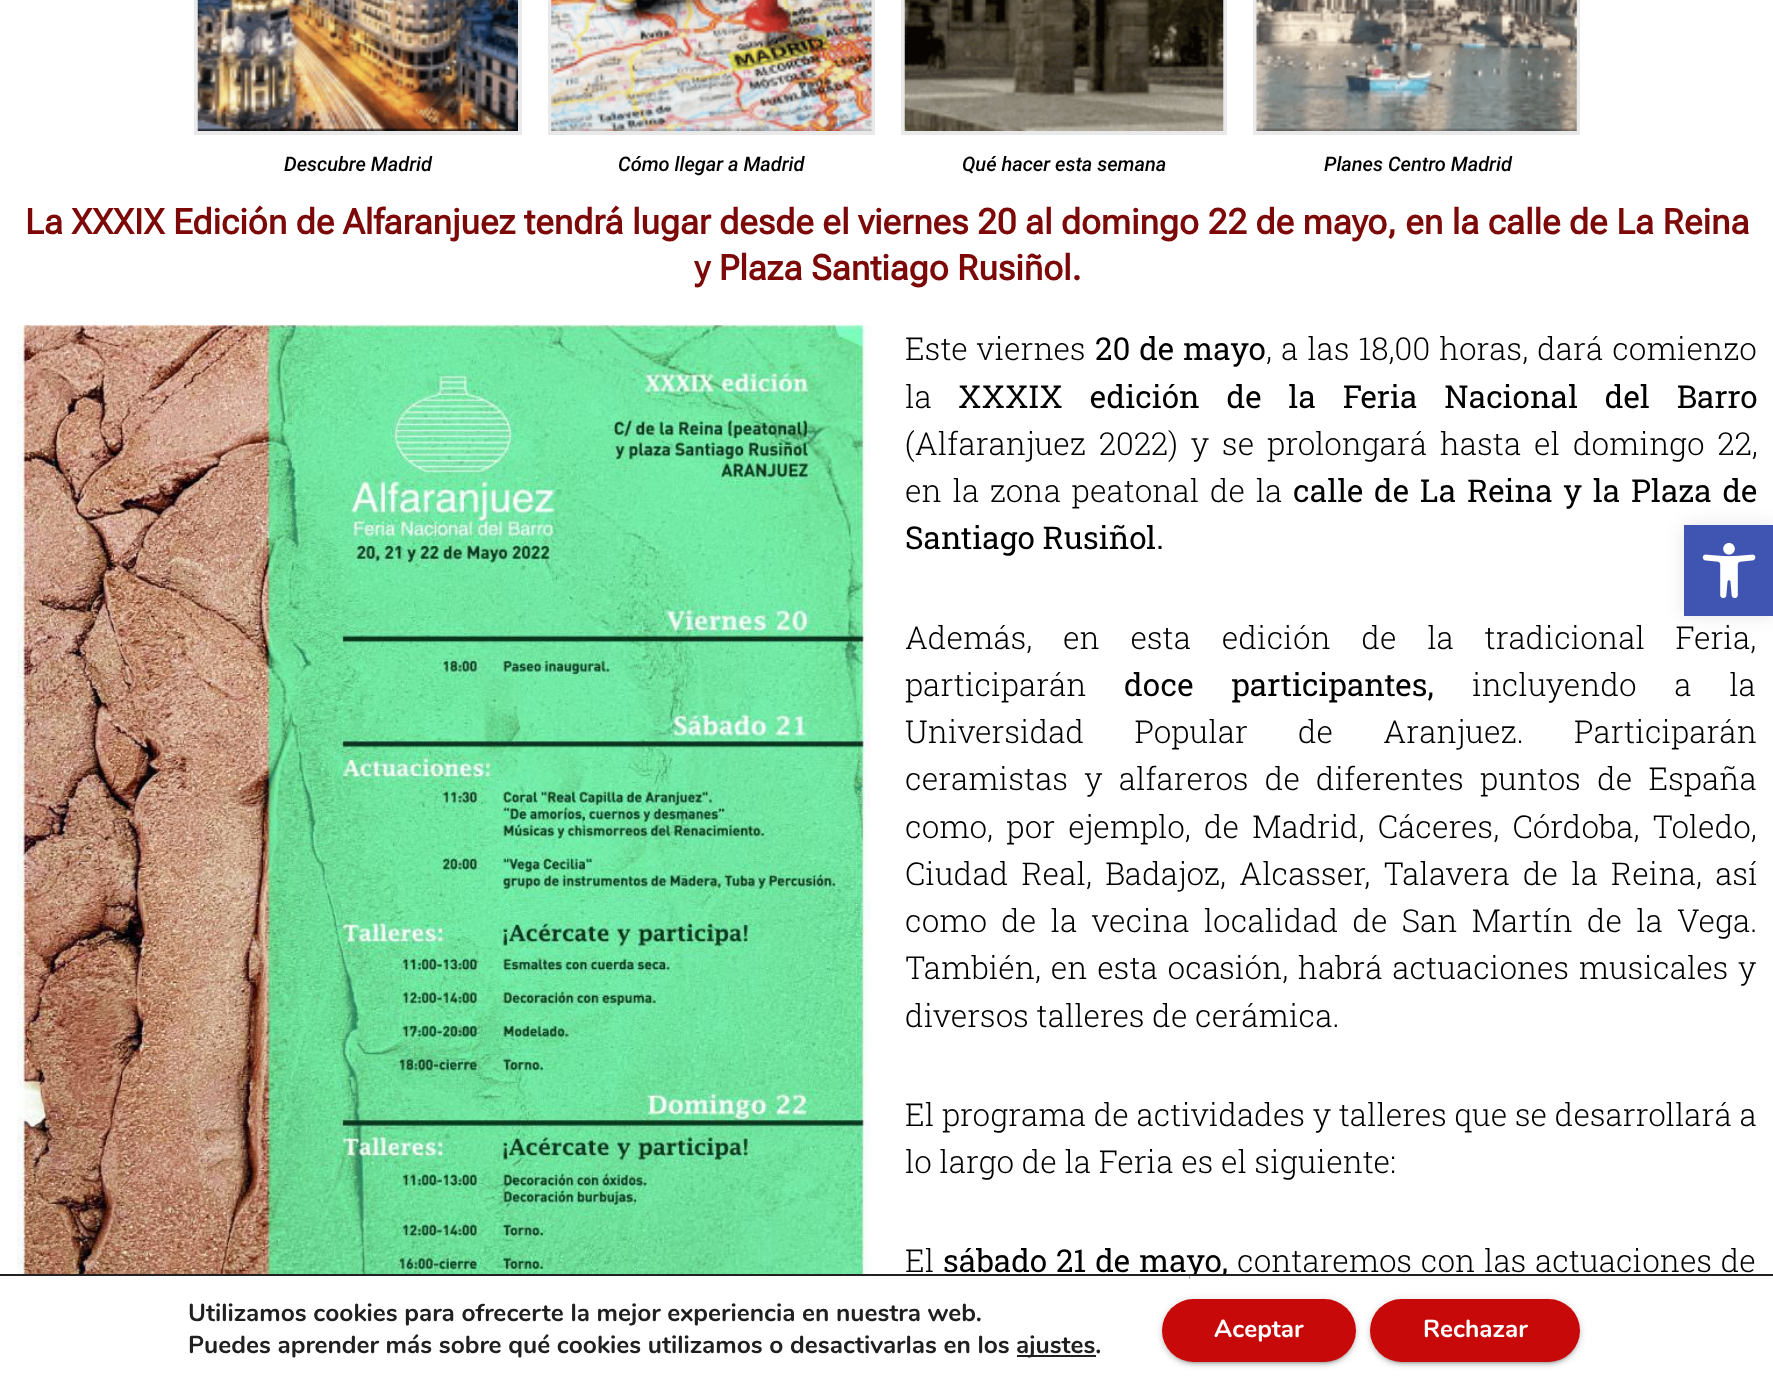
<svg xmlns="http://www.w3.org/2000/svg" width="1773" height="1384">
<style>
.a{font:italic 500 20px Roboto;fill:#000}
.b{font:bold 35px Roboto Flex;fill:#7c0808}
.c{font:300 31.5px Roboto Slab;fill:#000}
.d{font:31.5px Roboto Slab;fill:#000}
.e{font:bold 24.5px Nunito;fill:#202020}
.f{font:bold 24.5px Nunito;fill:#fff}
</style>
<rect width="100%" height="100%" fill="#fff"/>
<path fill="none" stroke="#e9e9e9" stroke-width="4" d="M196 -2h324v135H196z"/>
<image href="1.png" x="197" y="0" width="321" height="131"/>
<path fill="none" stroke="#e9e9e9" stroke-width="4" d="M550 -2h323v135H550z"/>
<image href="2.png" x="551" y="0" width="321" height="131"/>
<path fill="none" stroke="#e9e9e9" stroke-width="4" d="M903 -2h322v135H903z"/>
<image href="3.png" x="904" y="0" width="320" height="131"/>
<path fill="none" stroke="#e9e9e9" stroke-width="4" d="M1255 -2h323v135H1255z"/>
<image href="4.png" x="1256" y="0" width="321" height="131"/>
<image href="5.png" x="17" y="325" width="853" height="949"/>
<path fill="#0000001a" filter="blur(9px)" d="M1684 525h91v91H1684z"/>
<path fill="#4054b2" d="M1684 525h89v91H1684z"/>
<image href="6.png" x="1702" y="543" width="54" height="56"/>
<path fill="#202020" d="M1017 1355h79v2H1017z"/>
<rect fill="#0000001f" filter="blur(4.5px)" x="1162" y="1300" width="194" height="63" rx="31.5"/>
<rect fill="#00000033" filter="blur(1px)" x="1166" y="1307" width="187" height="56" rx="28"/>
<rect fill="#00000024" filter="blur(2px)" x="1162" y="1302" width="194" height="63" rx="31.5"/>
<rect fill="#c70909" x="1162" y="1299" width="194" height="63" rx="31.5"/>
<rect fill="#0000001f" filter="blur(4.5px)" x="1370" y="1300" width="210" height="63" rx="31.5"/>
<rect fill="#00000033" filter="blur(1px)" x="1374" y="1307" width="203" height="56" rx="28"/>
<rect fill="#00000024" filter="blur(2px)" x="1370" y="1302" width="210" height="63" rx="31.5"/>
<rect fill="#c70909" x="1370" y="1299" width="210" height="63" rx="31.5"/>
<text class="a" x="284" y="171">Descubre Madrid</text>
<text class="a" x="618" y="171">Cómo llegar a Madrid</text>
<text class="a" x="962" y="171">Qué hacer esta semana</text>
<text class="a" x="1324" y="171">Planes Centro Madrid</text>
<text class="b" x="25" y="234">La XXXIX Edición de Alfaranjuez tendrá lugar desde el viernes 20 al domingo 22 de mayo, en la calle de La Reina</text>
<text class="b" x="694" y="280">y Plaza Santiago Rusiñol.</text>
<text class="c" x="905" y="360" word-spacing="1">Este viernes</text>
<text class="d" x="1095" y="360" word-spacing="1">20 de mayo</text>
<text class="c" x="1266" y="360" word-spacing="1.25">, a las 18,00 horas, dará comienzo</text>
<text class="c" x="905" y="408">la</text>
<text class="d" x="958" y="408" word-spacing="19">XXXIX edición de la Feria Nacional del Barro</text>
<text class="c" x="905" y="455" word-spacing="5.25">(Alfaranjuez 2022) y se prolongará hasta el domingo 22,</text>
<text class="c" x="905" y="502" word-spacing="3">en la zona peatonal de la</text>
<text class="d" x="1293" y="502" word-spacing="3">calle de La Reina y la Plaza de</text>
<text class="d" x="905" y="549">Santiago Rusiñol.</text>
<text class="c" x="905" y="649" word-spacing="23">Además, en esta edición de la tradicional Feria,</text>
<text class="c" x="905" y="696">participarán</text>
<text class="d" x="1124" y="696" word-spacing="30">doce participantes,</text>
<text class="c" x="1472" y="696" word-spacing="30">incluyendo a la</text>
<text class="c" x="905" y="743" word-spacing="42.5">Universidad Popular de Aranjuez. Participarán</text>
<text class="c" x="905" y="790" word-spacing="8.5">ceramistas y alfareros de diferentes puntos de España</text>
<text class="c" x="905" y="838" word-spacing="5.5">como, por ejemplo, de Madrid, Cáceres, Córdoba, Toledo,</text>
<text class="c" x="905" y="885" word-spacing="5.5">Ciudad Real, Badajoz, Alcasser, Talavera de la Reina, así</text>
<text class="c" x="905" y="932" word-spacing="6.5">como de la vecina localidad de San Martín de la Vega.</text>
<text class="c" x="905" y="979" word-spacing="2">También, en esta ocasión, habrá actuaciones musicales y</text>
<text class="c" x="905" y="1027">diversos talleres de cerámica.</text>
<text class="c" x="905" y="1126">El programa de actividades y talleres que se desarrollará a</text>
<text class="c" x="905" y="1173">lo largo de la Feria es el siguiente:</text>
<text class="c" x="905" y="1272">El</text>
<text class="d" x="943" y="1272" word-spacing="1">sábado 21 de mayo,</text>
<text class="c" x="1237" y="1272" word-spacing="1">contaremos con las actuaciones de</text>
<path fill="#fff" d="M1190 1276h35v3H1190z"/>
<path fill="#202020" d="M0 1274h1773v2H0z"/>
<text class="e" x="188" y="1321">Utilizamos cookies para ofrecerte la mejor experiencia en nuestra web.</text>
<text class="e" x="188" y="1353">Puedes aprender más sobre qué cookies utilizamos o desactivarlas en los</text>
<text class="e" x="1016" y="1353">ajustes.</text>
<text class="f" x="1214" y="1337">Aceptar</text>
<text class="f" x="1423" y="1337">Rechazar</text>
</svg>
